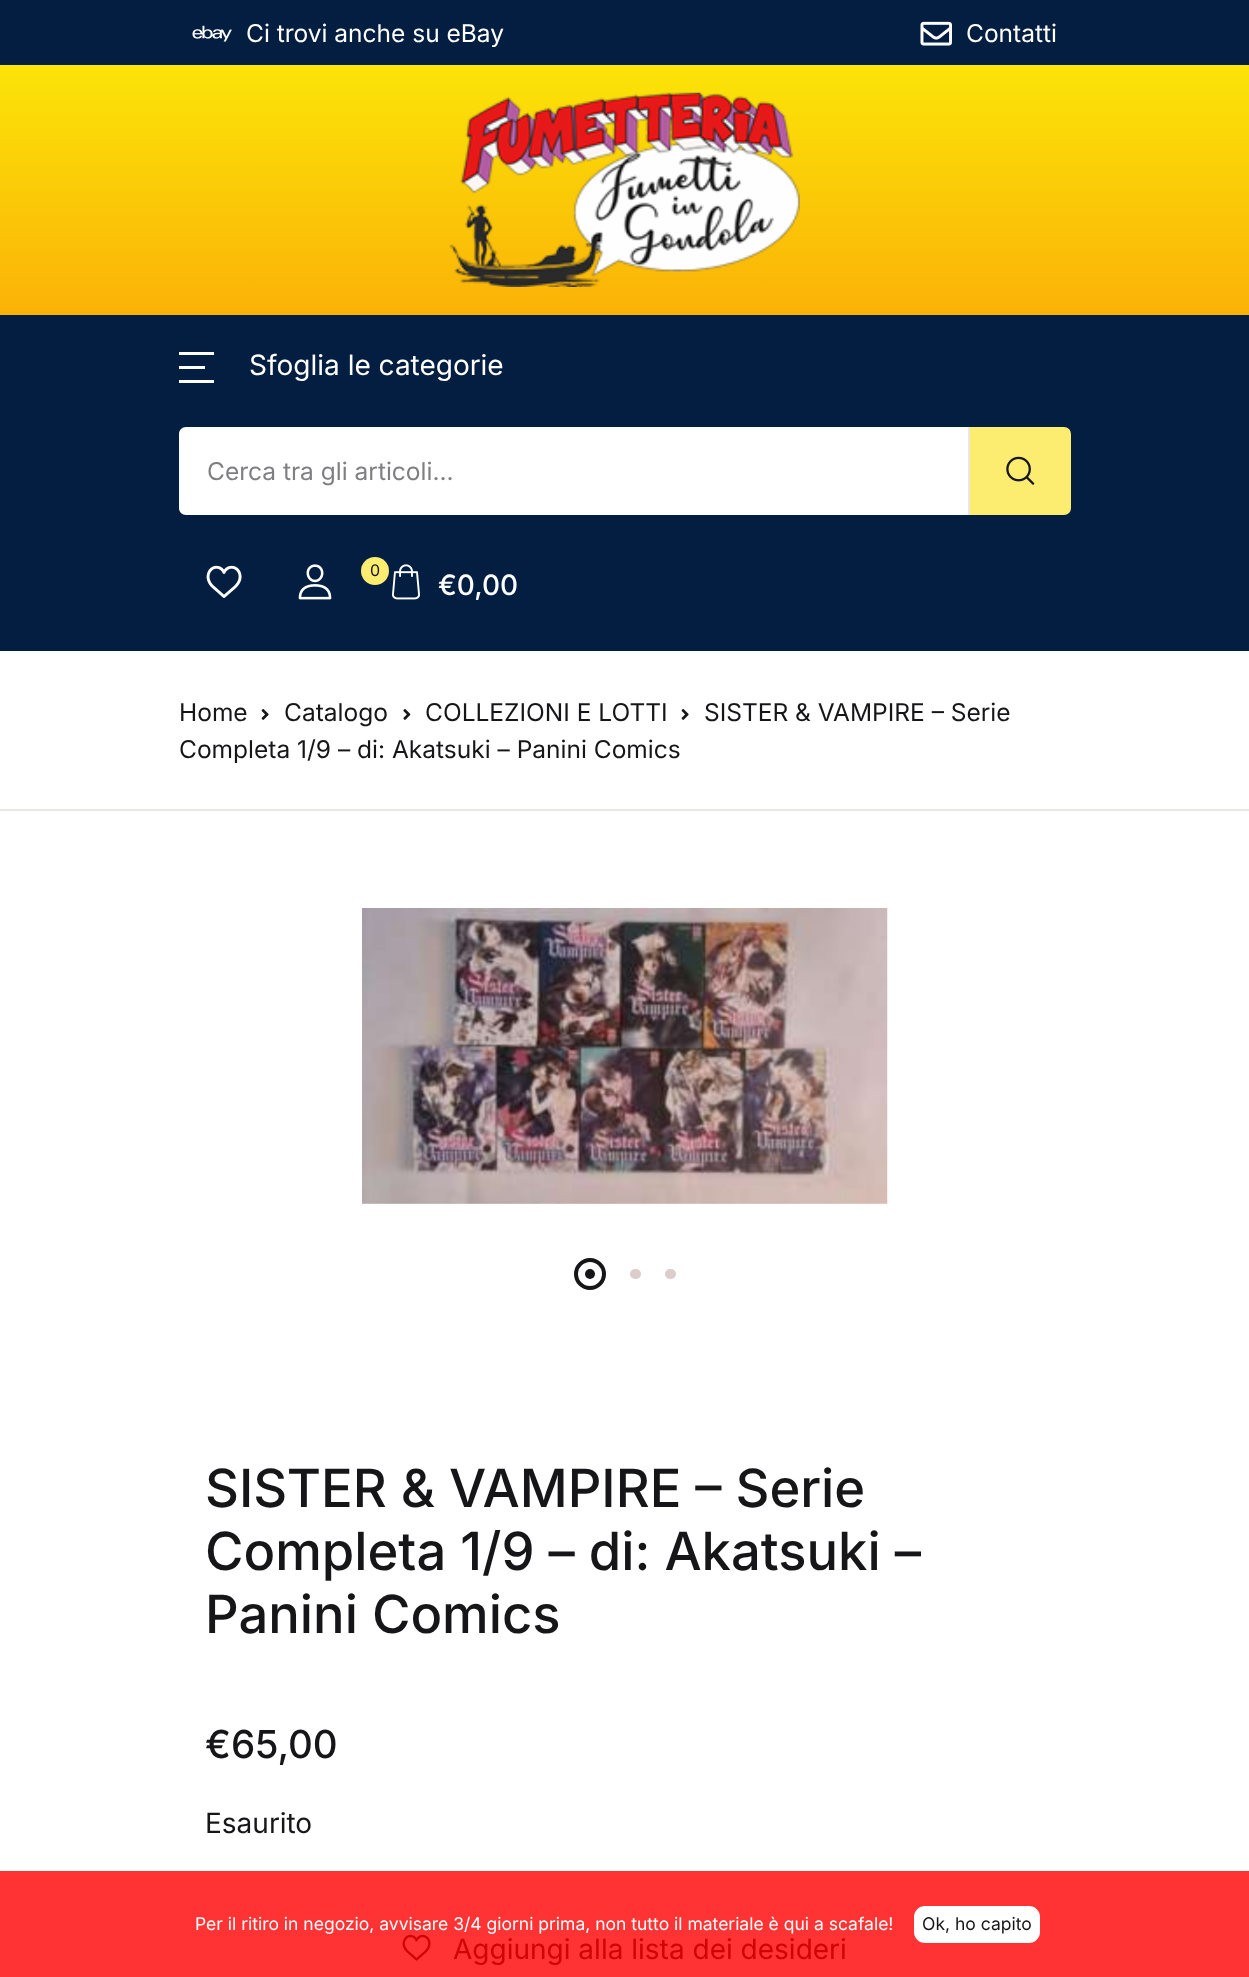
<svg xmlns="http://www.w3.org/2000/svg" width="1249" height="1977">
<style>
.a{font:24.5px Inter;fill:#fff}
.b{font:28px Inter;fill:#fff}
.c{font:24.5px Inter;fill:#7f7f83}
.d{font:16px Inter;fill:#161619}
.e{font:500 28px Inter;fill:#fff}
.f{font:24.5px Inter;fill:#161619}
.g{font:500 52.5px Inter;fill:#161619}
.h{font:500 38.5px Inter;fill:#161619}
.i{font:28px Inter;fill:#161619}
.j{font:28px Inter;fill:#d00405}
.k{font:17.5px Inter;fill:#fff}
.l{font:17.5px Inter;fill:#161619}
</style>
<defs>
<linearGradient id="g1" gradientUnits="userSpaceOnUse" x1="625" y1="65" x2="625" y2="315"><stop offset="0" stop-color="#fbe408"/><stop offset="1" stop-color="#fbb207"/></linearGradient>
</defs>
<rect width="100%" height="100%" fill="#fff"/>
<path fill="#f33" d="M0 1871h1249v106H0z"/>
<path fill="#041e42" d="M0 0h1249v65H0z"/>
<image href="1.png" x="192" y="25" width="40" height="17"/>
<image href="2.png" x="920" y="21" width="32" height="25"/>
<path fill="url(#g1)" d="M0 65h1249v250H0z"/>
<image href="3.png" x="449" y="92" width="351" height="195"/>
<path fill="#041e42" d="M0 315h1249v336H0z"/>
<path fill="#fff" d="M179 352h35v3H179z"/>
<path fill="#fff" d="M179 366h26v3H179z"/>
<path fill="#fff" d="M179 380h35v3H179z"/>
<path fill="#fff" d="M186 427h782v88h-782c-4 0-7-3-7-7v-74c0-4 3-7 7-7z"/>
<path fill="#eae8e4" d="M968 427h2v88H968z"/>
<path fill="#fced70" stroke="#fced70" stroke-width="2" d="M971 428h93c3.5 0 6 2.5 6 6v74c0 3.5-2.5 6-6 6h-93z"/>
<image href="4.png" x="1006" y="456" width="29" height="29"/>
<image href="5.png" x="206" y="565" width="36" height="33"/>
<image href="6.png" x="298" y="564" width="34" height="36"/>
<circle fill="#fced70" cx="375" cy="571" r="14"/>
<image href="7.png" x="392" y="564" width="28" height="36"/>
<path fill="#eae8e4" d="M0 809h1249v2H0z"/>
<image href="8.png" x="261" y="709" width="8" height="11"/>
<image href="9.png" x="403" y="709" width="8" height="11"/>
<image href="8.png" x="681" y="709" width="8" height="11"/>
<image href="10.png" x="362" y="908" width="526" height="296"/>
<circle fill="none" stroke="#161619" stroke-width="4" cx="590" cy="1274" r="14"/>
<circle fill="#161619" cx="590" cy="1274" r="5"/>
<rect fill="#dccccc" x="630" y="1269" width="11" height="10" rx="5"/>
<rect fill="#dccccc" x="665" y="1269" width="11" height="10" rx="5"/>
<image href="11.png" x="402" y="1934" width="29" height="27"/>
<rect fill="#fff" stroke="#fff" stroke-width="2" x="915" y="1907" width="124" height="35" rx="10"/>
<text class="a" x="246" y="42">Ci trovi anche su eBay</text>
<text class="a" x="966" y="42">Contatti</text>
<text class="b" x="249" y="375">Sfoglia le categorie</text>
<text class="c" x="207" y="480">Cerca tra gli articoli...</text>
<text class="d" x="370" y="576">0</text>
<text class="e" x="438" y="595">€0,00</text>
<text class="f" x="179" y="721">Home</text>
<text class="f" x="284" y="721">Catalogo</text>
<text class="f" x="425" y="721">COLLEZIONI E LOTTI</text>
<text class="f" x="704" y="721">SISTER &amp; VAMPIRE – Serie</text>
<text class="f" x="179" y="758">Completa 1/9 – di: Akatsuki – Panini Comics</text>
<text class="g" x="205" y="1507">SISTER &amp; VAMPIRE – Serie</text>
<text class="g" x="205" y="1570">Completa 1/9 – di: Akatsuki –</text>
<text class="g" x="205" y="1633">Panini Comics</text>
<text class="h" x="205" y="1758">€65,00</text>
<text class="i" x="205" y="1833">Esaurito</text>
<text class="j" x="453" y="1959">Aggiungi alla lista dei desideri</text>
<text class="k" x="195" y="1930">Per il ritiro in negozio, avvisare 3/4 giorni prima, non tutto il materiale è qui a scafale!</text>
<text class="l" x="922" y="1930">Ok, ho capito</text>
</svg>
